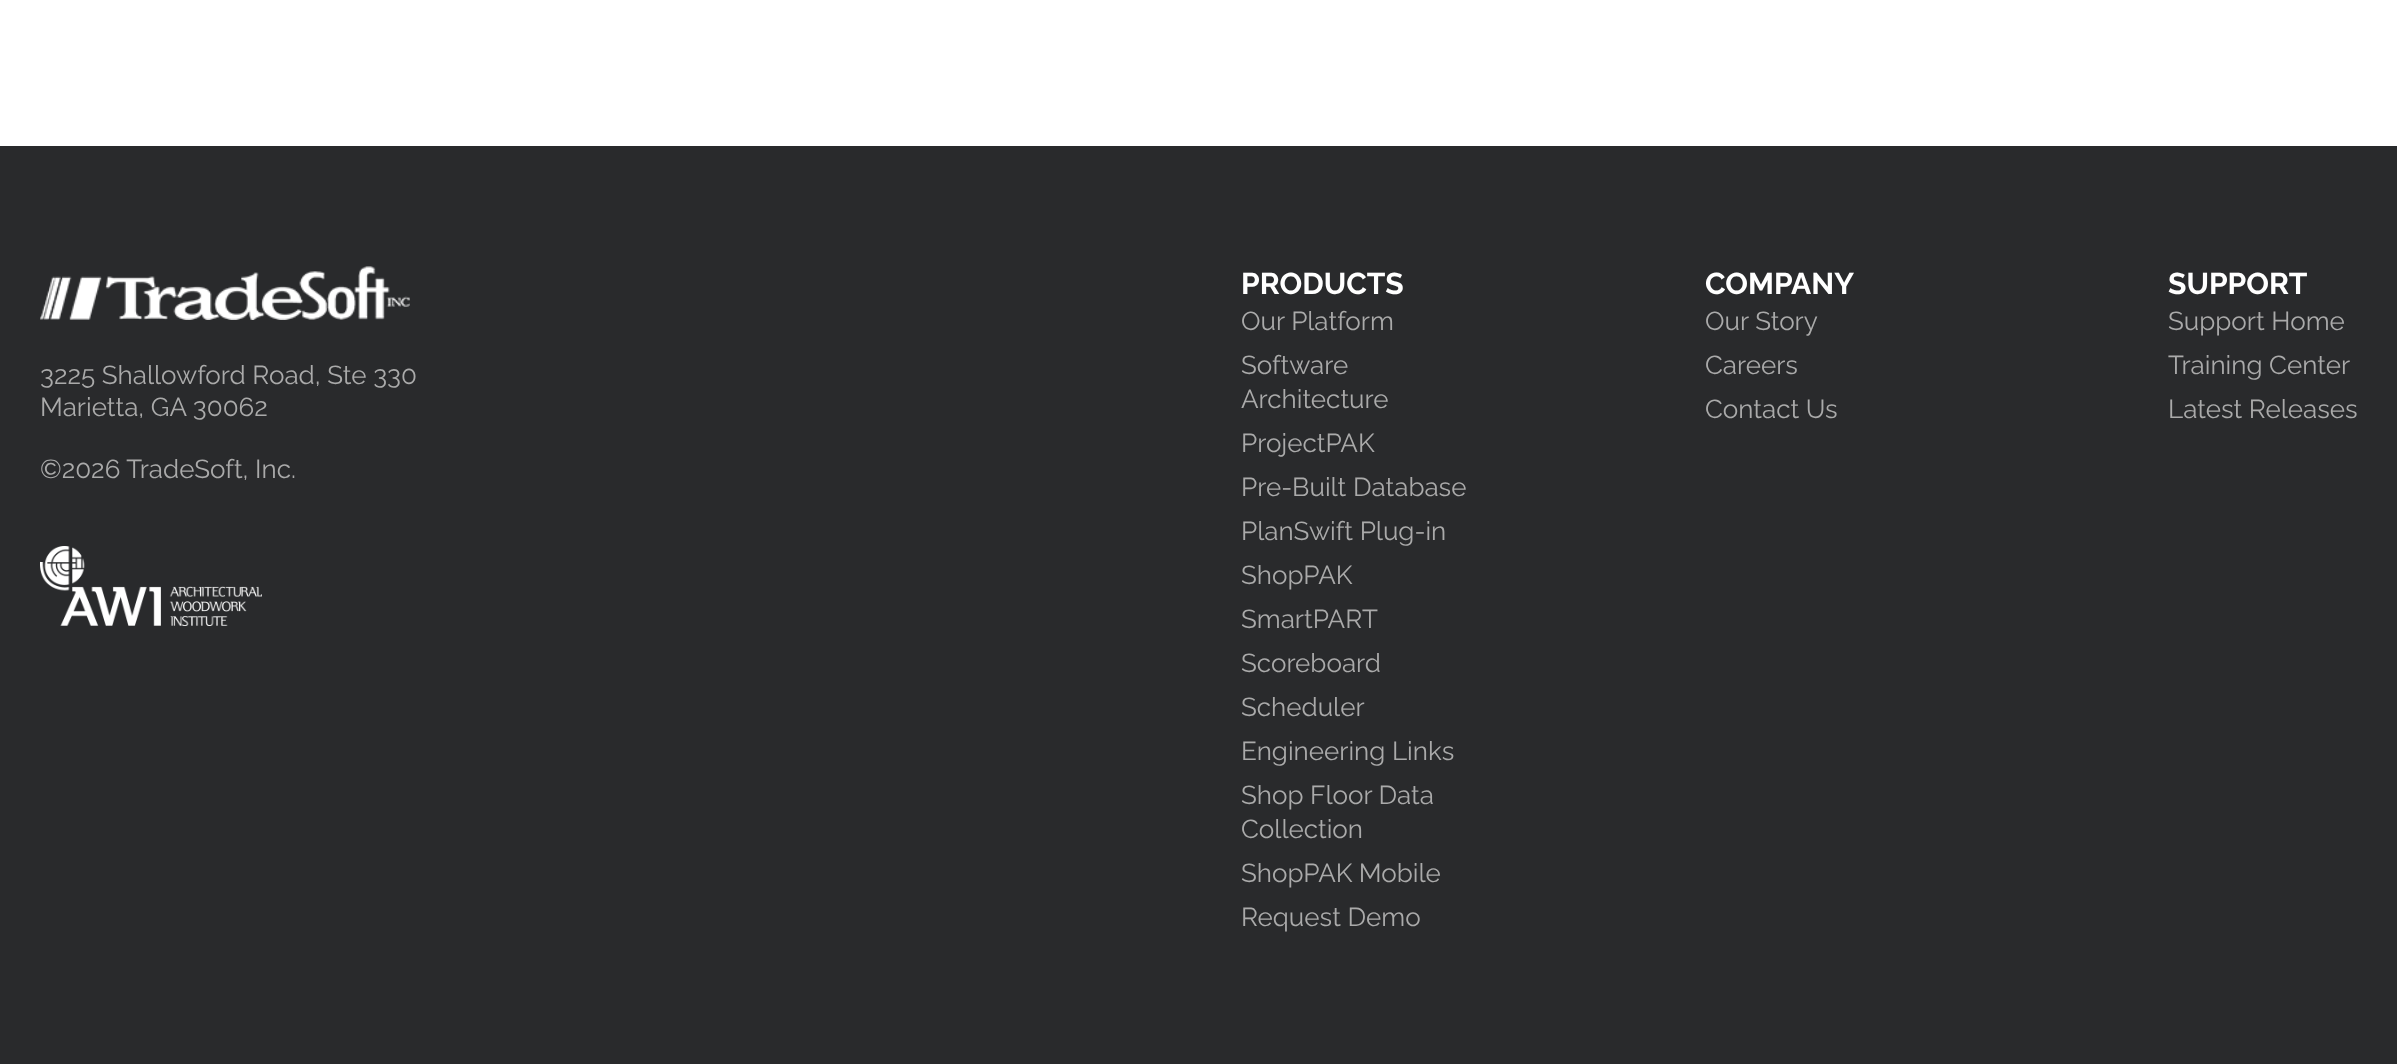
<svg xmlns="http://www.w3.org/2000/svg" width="2397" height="1064">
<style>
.a{font:26px Raleway;fill:#aaa}
.b{font:bold 30px Raleway;fill:#fff}
</style>
<rect width="100%" height="100%" fill="#fff"/>
<path fill="#292a2c" d="M0 146h2397v918H0z"/>
<image href="1.png" x="40" y="266" width="370" height="54"/>
<image href="2.png" x="40" y="546" width="222" height="80"/>
<text class="a" x="40" y="384">3225 Shallowford Road, Ste 330</text>
<text class="a" x="40" y="416">Marietta, GA 30062</text>
<text class="a" x="40" y="478">©2026 TradeSoft, Inc.</text>
<text class="b" x="1241" y="294">PRODUCTS</text>
<text class="a" x="1241" y="330">Our Platform</text>
<text class="a" x="1241" y="374">Software</text>
<text class="a" x="1241" y="408">Architecture</text>
<text class="a" x="1241" y="452">ProjectPAK</text>
<text class="a" x="1241" y="496">Pre-Built Database</text>
<text class="a" x="1241" y="540">PlanSwift Plug-in</text>
<text class="a" x="1241" y="584">ShopPAK</text>
<text class="a" x="1241" y="628">SmartPART</text>
<text class="a" x="1241" y="672">Scoreboard</text>
<text class="a" x="1241" y="716">Scheduler</text>
<text class="a" x="1241" y="760">Engineering Links</text>
<text class="a" x="1241" y="804">Shop Floor Data</text>
<text class="a" x="1241" y="838">Collection</text>
<text class="a" x="1241" y="882">ShopPAK Mobile</text>
<text class="a" x="1241" y="926">Request Demo</text>
<text class="b" x="1705" y="294">COMPANY</text>
<text class="a" x="1705" y="330">Our Story</text>
<text class="a" x="1705" y="374">Careers</text>
<text class="a" x="1705" y="418">Contact Us</text>
<text class="b" x="2168" y="294">SUPPORT</text>
<text class="a" x="2168" y="330">Support Home</text>
<text class="a" x="2168" y="374">Training Center</text>
<text class="a" x="2168" y="418">Latest Releases</text>
</svg>
